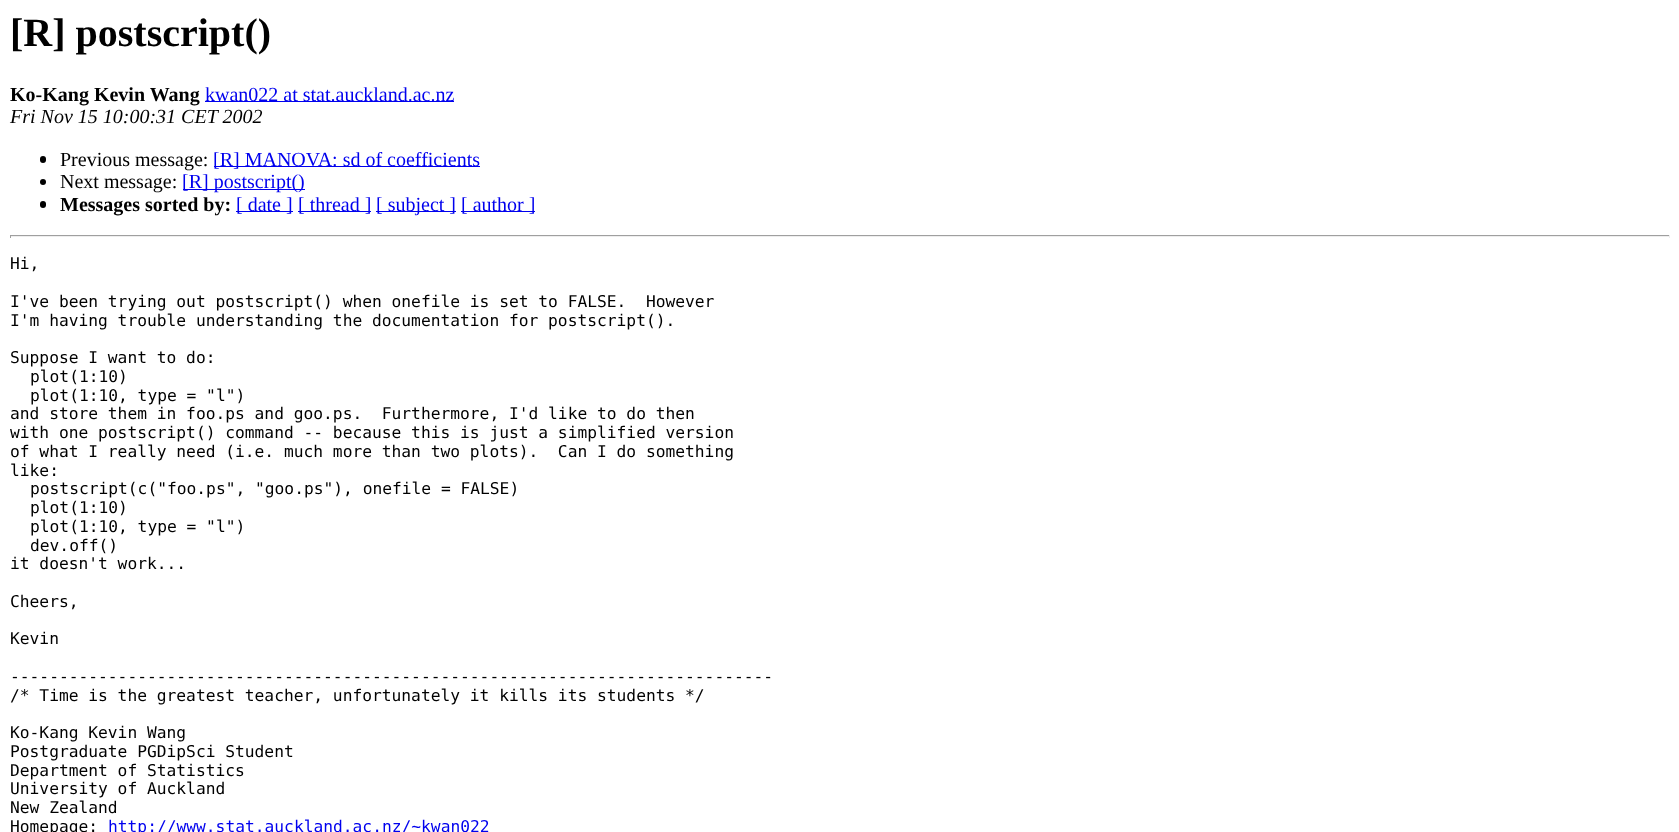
<svg xmlns="http://www.w3.org/2000/svg" width="1679" height="832">
<style>
.a{font:bold 40px Liberation Serif;fill:#000}
.b{font:bold 20px Liberation Serif;fill:#000}
.c{font:20px Liberation Serif;fill:#00e}
.d{font:italic 20px Liberation Serif;fill:#000}
.e{font:20px Liberation Serif;fill:#000}
.f{font:16.25px DejaVu Sans Mono;fill:#000}
.g{font:16.25px DejaVu Sans Mono;fill:#00e}
</style>
<rect width="100%" height="100%" fill="#fff"/>
<path fill="#00e" d="M205 101h249v1H205z"/>
<rect fill="#000" x="40" y="156" width="6" height="7" rx="3"/>
<path fill="#00e" d="M214 166h266v1H214z"/>
<circle fill="#000" cx="43" cy="182" r="3"/>
<path fill="#00e" d="M183 189h122v1H183z"/>
<rect fill="#000" x="40" y="201" width="6" height="7" rx="3"/>
<path fill="#00e" d="M236 211h57v1H236z"/>
<path fill="#00e" d="M298 211h73v1H298z"/>
<path fill="#00e" d="M376 211h80v1H376z"/>
<path fill="#00e" d="M461 211h74v1H461z"/>
<path fill="#9f9f9f" d="M10 235h1660v1H10z"/>
<path fill="#eee" d="M1669 235h1v3H1669z"/>
<path fill="#eee" d="M10 236h1660v1H10z"/>
<path fill="#9f9f9f" d="M10 235h1v3H10z"/>
<text class="a" x="10" y="46">[R] postscript()</text>
<text class="b" x="10" y="101">Ko-Kang Kevin Wang</text>
<text class="c" x="205" y="101">kwan022 at stat.auckland.ac.nz</text>
<text class="d" x="10" y="123">Fri Nov 15 10:00:31 CET 2002</text>
<text class="e" x="60" y="166">Previous message:</text>
<text class="c" x="213" y="166">[R] MANOVA: sd of coefficients</text>
<text class="e" x="60" y="188">Next message:</text>
<text class="c" x="182" y="188">[R] postscript()</text>
<text class="b" x="60" y="211">Messages sorted by:</text>
<text class="c" x="236" y="211">[ date ]</text>
<text class="c" x="298" y="211">[ thread ]</text>
<text class="c" x="376" y="211">[ subject ]</text>
<text class="c" x="461" y="211">[ author ]</text>
<text class="f" x="10" y="269">Hi,</text>
<text class="f" xml:space="preserve" x="10" y="307">I've been trying out postscript() when onefile is set to FALSE.  However</text>
<text class="f" x="10" y="326">I'm having trouble understanding the documentation for postscript().</text>
<text class="f" x="10" y="363">Suppose I want to do:</text>
<text class="f" x="30" y="382">plot(1:10)</text>
<text class="f" x="30" y="401">plot(1:10, type = "l")</text>
<text class="f" xml:space="preserve" x="10" y="419">and store them in foo.ps and goo.ps.  Furthermore, I'd like to do then</text>
<text class="f" x="10" y="438">with one postscript() command -- because this is just a simplified version</text>
<text class="f" xml:space="preserve" x="10" y="457">of what I really need (i.e. much more than two plots).  Can I do something</text>
<text class="f" x="10" y="476">like:</text>
<text class="f" x="30" y="494">postscript(c("foo.ps", "goo.ps"), onefile = FALSE)</text>
<text class="f" x="30" y="513">plot(1:10)</text>
<text class="f" x="30" y="532">plot(1:10, type = "l")</text>
<text class="f" x="30" y="551">dev.off()</text>
<text class="f" x="10" y="569">it doesn't work...</text>
<text class="f" x="10" y="607">Cheers,</text>
<text class="f" x="10" y="644">Kevin</text>
<text class="f" x="10" y="682">------------------------------------------------------------------------------</text>
<text class="f" x="10" y="701">/* Time is the greatest teacher, unfortunately it kills its students */</text>
<text class="f" x="10" y="738">Ko-Kang Kevin Wang</text>
<text class="f" x="10" y="757">Postgraduate PGDipSci Student</text>
<text class="f" x="10" y="776">Department of Statistics</text>
<text class="f" x="10" y="794">University of Auckland</text>
<text class="f" x="10" y="813">New Zealand</text>
<text class="f" x="10" y="832">Homepage:</text>
<text class="g" x="108" y="832">http://www.stat.auckland.ac.nz/~kwan022</text>
</svg>
